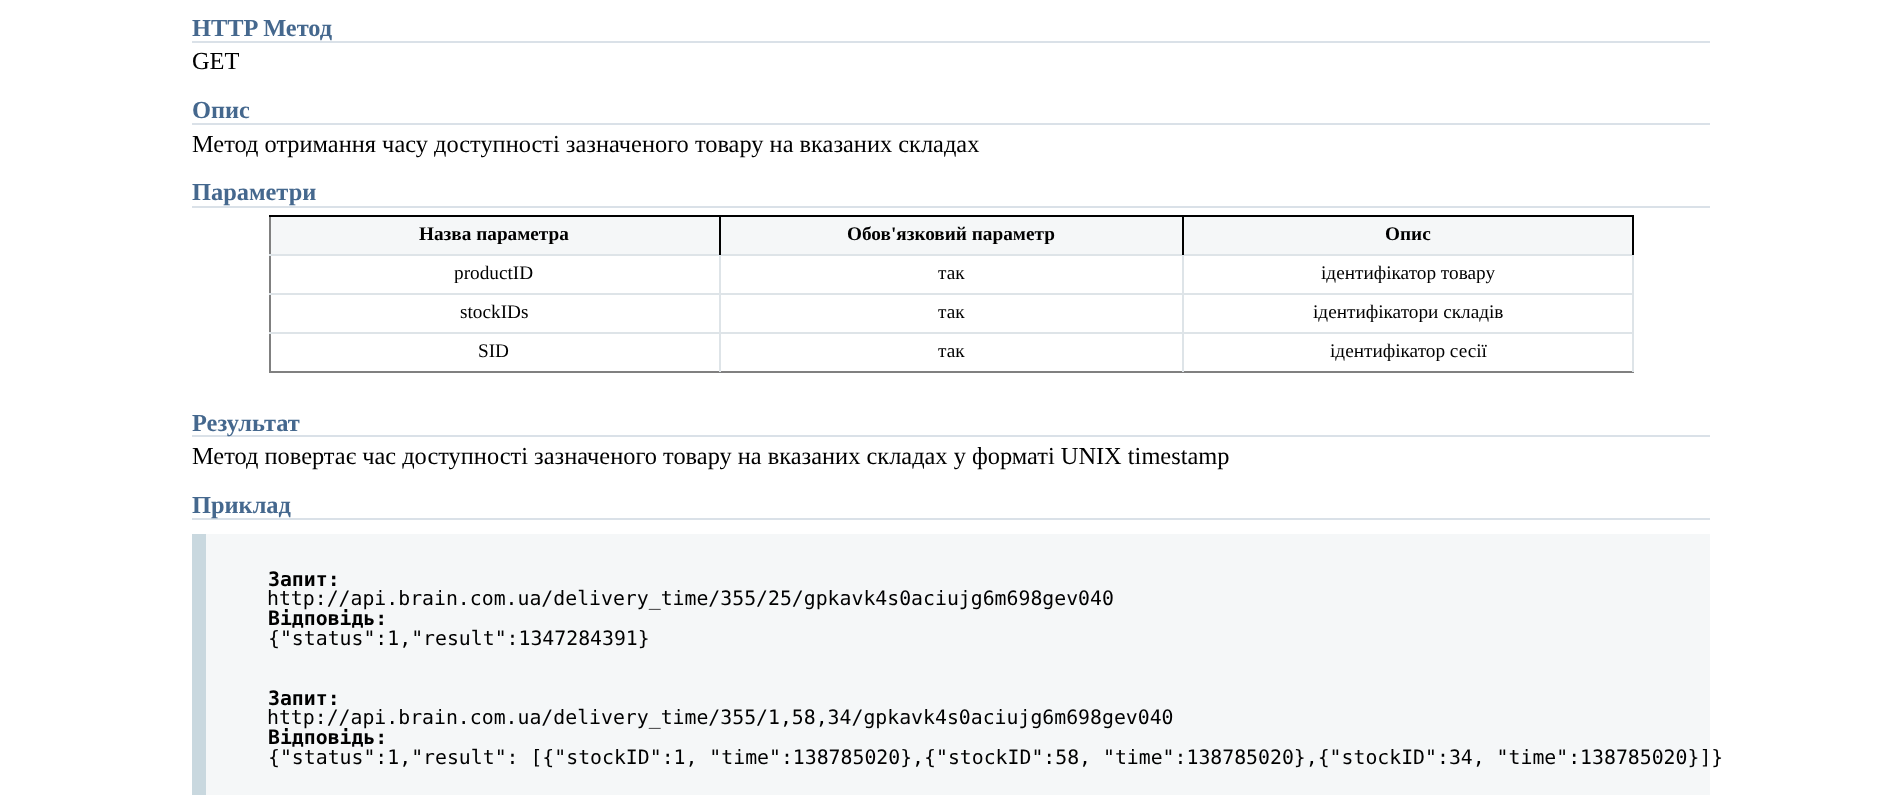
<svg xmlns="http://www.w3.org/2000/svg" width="1902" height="795">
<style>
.a{font:bold 24.4px Liberation Serif;fill:#45688e}
.b{font:24.4px Liberation Serif;fill:#000}
.c{font:bold 19.25px Liberation Serif;fill:#000}
.d{font:19.25px Liberation Serif;fill:#000}
.e{font:bold 19.82px DejaVu Sans Mono;fill:#000}
.f{font:19.82px DejaVu Sans Mono;fill:#000}
</style>
<rect width="100%" height="100%" fill="#fff"/>
<path fill="#dae1e8" d="M192 41h1518v2H192z"/>
<path fill="#dae1e8" d="M192 123h1518v2H192z"/>
<path fill="#dae1e8" d="M192 206h1518v2H192z"/>
<path fill="#808080" d="M269 371h1365v2H269z"/>
<path fill="#808080" d="M269 215h2v157H269z"/>
<path fill="#f5f7f8" d="M271 217h448v37H271z"/>
<path fill="#000" d="M269 215h1365v2H269z"/>
<path fill="#dee4e8" d="M269 254h1365v2H269z"/>
<path fill="#dee4e8" d="M269 293h1365v2H269z"/>
<path fill="#dee4e8" d="M269 332h1365v2H269z"/>
<path fill="#dee4e8" d="M719 332h2v40H719z"/>
<path fill="#dee4e8" d="M719 293h2v40H719z"/>
<path fill="#dee4e8" d="M719 254h2v40H719z"/>
<path fill="#000" d="M719 215h2v40H719z"/>
<path fill="#f5f7f8" d="M721 217h461v37H721z"/>
<path fill="#dee4e8" d="M1182 332h2v40H1182z"/>
<path fill="#dee4e8" d="M1182 293h2v40H1182z"/>
<path fill="#dee4e8" d="M1182 254h2v40H1182z"/>
<path fill="#000" d="M1182 215h2v40H1182z"/>
<path fill="#f5f7f8" d="M1184 217h448v37H1184z"/>
<path fill="#dee4e8" d="M1632 332h2v40H1632z"/>
<path fill="#dee4e8" d="M1632 293h2v40H1632z"/>
<path fill="#dee4e8" d="M1632 254h2v40H1632z"/>
<path fill="#000" d="M1632 215h2v40H1632z"/>
<path fill="#dae1e8" d="M192 435h1518v2H192z"/>
<path fill="#dae1e8" d="M192 518h1518v2H192z"/>
<path fill="#f5f7f8" d="M206 534h1504v261H206z"/>
<path fill="#c9d8df" d="M192 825v-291h14v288z"/>
<text class="a" x="192" y="36">HTTP Метод</text>
<text class="b" x="192" y="69">GET</text>
<text class="a" x="192" y="118">Опис</text>
<text class="b" x="192" y="152">Метод отримання часу доступності зазначеного товару на вказаних складах</text>
<text class="a" x="192" y="200">Параметри</text>
<text class="c" x="419" y="240">Назва параметра</text>
<text class="c" x="847" y="240">Обов'язковий параметр</text>
<text class="c" x="1385" y="240">Опис</text>
<text class="d" x="454" y="279">productID</text>
<text class="d" x="938" y="279">так</text>
<text class="d" x="1321" y="279">ідентифікатор товару</text>
<text class="d" x="460" y="318">stockIDs</text>
<text class="d" x="938" y="318">так</text>
<text class="d" x="1313" y="318">ідентифікатори складів</text>
<text class="d" x="478" y="357">SID</text>
<text class="d" x="938" y="357">так</text>
<text class="d" x="1330" y="357">ідентифікатор сесії</text>
<text class="a" x="192" y="431">Результат</text>
<text class="b" x="192" y="464">Метод повертає час доступності зазначеного товару на вказаних складах у форматі UNIX timestamp</text>
<text class="a" x="192" y="513">Приклад</text>
<text class="e" x="268" y="586">Запит:</text>
<text class="f" x="267" y="605">http://api.brain.com.ua/delivery_time/355/25/gpkavk4s0aciujg6m698gev040</text>
<text class="e" x="268" y="625">Відповідь:</text>
<text class="f" x="268" y="645">{"status":1,"result":1347284391}</text>
<text class="e" x="268" y="705">Запит:</text>
<text class="f" x="267" y="724">http://api.brain.com.ua/delivery_time/355/1,58,34/gpkavk4s0aciujg6m698gev040</text>
<text class="e" x="268" y="744">Відповідь:</text>
<text class="f" x="268" y="764">{"status":1,"result": [{"stockID":1, "time":138785020},{"stockID":58, "time":138785020},{"stockID":34, "time":138785020}]}</text>
</svg>
